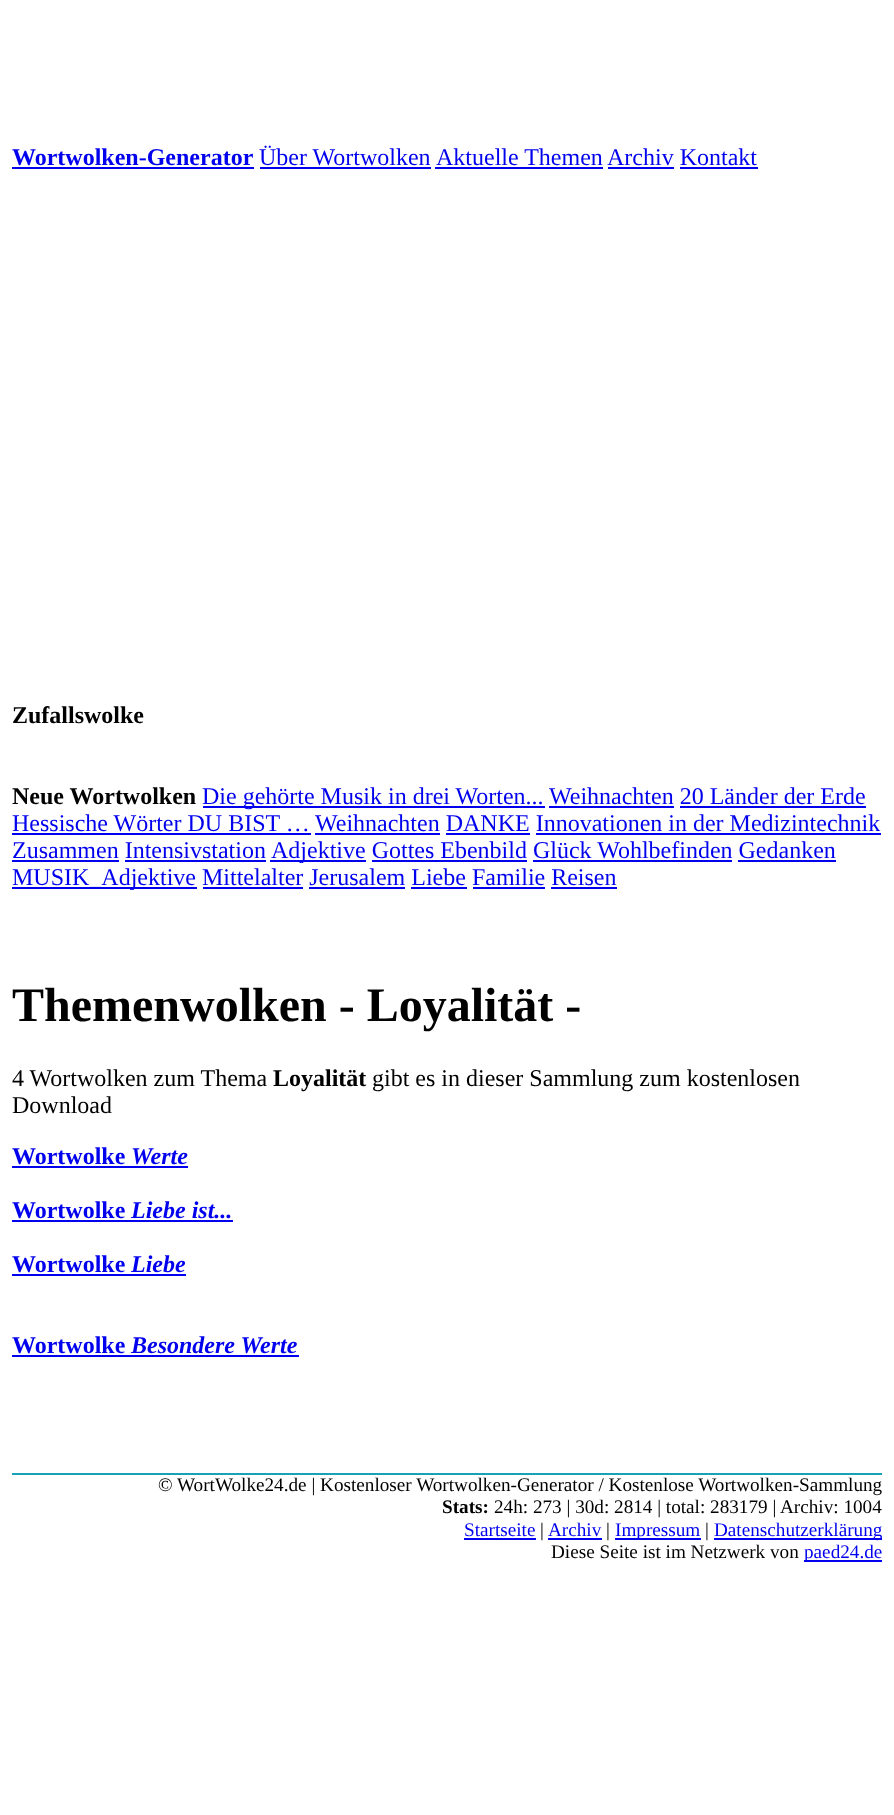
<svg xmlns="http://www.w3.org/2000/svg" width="894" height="1815">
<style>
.a{font:bold 24px Liberation Serif;fill:#00e}
.b{font:24px Liberation Serif;fill:#00e}
.c{font:bold 24px Liberation Serif;fill:#000}
.d{font:bold 48px Liberation Serif;fill:#000}
.e{font:24px Liberation Serif;fill:#000}
.f{font:italic bold 24px Liberation Serif;fill:#00e}
.g{font:19.2px Liberation Serif;fill:#000}
.h{font:bold 19.2px Liberation Serif;fill:#000}
.i{font:19.2px Liberation Serif;fill:#00e}
</style>
<rect width="100%" height="100%" fill="#fff"/>
<path fill="#00e" d="M12 167h242v2H12z"/>
<path fill="#00e" d="M260 167h171v2H260z"/>
<path fill="#00e" d="M435 167h168v2H435z"/>
<path fill="#00e" d="M608 167h66v2H608z"/>
<path fill="#00e" d="M680 167h78v2H680z"/>
<path fill="#00e" d="M203 806h342v2H203z"/>
<path fill="#00e" d="M549 806h125v2H549z"/>
<path fill="#00e" d="M680 806h186v2H680z"/>
<path fill="#00e" d="M12 833h299v2H12z"/>
<path fill="#00e" d="M315 833h125v2H315z"/>
<path fill="#00e" d="M446 833h84v2H446z"/>
<path fill="#00e" d="M536 833h345v2H536z"/>
<path fill="#00e" d="M12 860h107v2H12z"/>
<path fill="#00e" d="M270 860h96v2H270z"/>
<path fill="#00e" d="M125 860h141v2H125z"/>
<path fill="#00e" d="M372 860h155v2H372z"/>
<path fill="#00e" d="M533 860h199v2H533z"/>
<path fill="#00e" d="M738 860h98v2H738z"/>
<path fill="#00e" d="M12 887h185v2H12z"/>
<path fill="#00e" d="M203 887h100v2H203z"/>
<path fill="#00e" d="M309 887h96v2H309z"/>
<path fill="#00e" d="M411 887h56v2H411z"/>
<path fill="#00e" d="M473 887h72v2H473z"/>
<path fill="#00e" d="M551 887h66v2H551z"/>
<path fill="#00e" d="M12 1166h176v2H12z"/>
<path fill="#00e" d="M12 1220h221v2H12z"/>
<path fill="#00e" d="M12 1274h174v2H12z"/>
<path fill="#00e" d="M12 1355h287v2H12z"/>
<path fill="#17a2b8" d="M12 1473h870v2H12z"/>
<path fill="#00e" d="M464 1538h72v2H464z"/>
<path fill="#00e" d="M548 1538h54v2H548z"/>
<path fill="#00e" d="M615 1538h86v2H615z"/>
<path fill="#00e" d="M714 1538h168v2H714z"/>
<path fill="#00e" d="M804 1560h78v2H804z"/>
<text class="a" x="12" y="165">Wortwolken-Generator</text>
<text class="b" x="259" y="165">Über Wortwolken</text>
<text class="b" x="436" y="165">Aktuelle Themen</text>
<text class="b" x="607" y="165">Archiv Kontakt</text>
<text class="c" x="12" y="723">Zufallswolke</text>
<text class="c" x="12" y="804">Neue Wortwolken</text>
<text class="b" x="202" y="804">Die gehörte Musik in drei Worten...</text>
<text class="b" x="549" y="804">Weihnachten 20 Länder der Erde</text>
<text class="b" x="12" y="831">Hessische Wörter DU BIST …</text>
<text class="b" x="315" y="831">Weihnachten DANKE Innovationen in der Medizintechnik</text>
<text class="b" x="12" y="858">Zusammen Intensivstation</text>
<text class="b" x="271" y="858">Adjektive Gottes Ebenbild Glück Wohlbefinden Gedanken</text>
<text class="b" x="12" y="885">MUSIK_Adjektive Mittelalter Jerusalem Liebe Familie Reisen</text>
<text class="d" x="12" y="1021">Themenwolken - Loyalität -</text>
<text class="e" x="12" y="1086">4 Wortwolken zum Thema</text>
<text class="c" x="273" y="1086">Loyalität</text>
<text class="e" x="372" y="1086">gibt es in dieser Sammlung zum kostenlosen</text>
<text class="e" x="12" y="1113">Download</text>
<text class="a" x="12" y="1164">Wortwolke</text>
<text class="f" x="131" y="1164">Werte</text>
<text class="a" x="12" y="1218">Wortwolke</text>
<text class="f" x="131" y="1218">Liebe ist...</text>
<text class="a" x="12" y="1272">Wortwolke</text>
<text class="f" x="131" y="1272">Liebe</text>
<text class="a" x="12" y="1353">Wortwolke</text>
<text class="f" x="131" y="1353">Besondere Werte</text>
<text class="g" x="158" y="1491">© WortWolke24.de | Kostenloser Wortwolken-Generator / Kostenlose Wortwolken-Sammlung</text>
<text class="h" x="442" y="1513">Stats:</text>
<text class="g" x="494" y="1513">24h: 273 | 30d: 2814 | total: 283179 | Archiv: 1004</text>
<text class="i" x="464" y="1536">Startseite</text>
<text class="g" x="540" y="1536">|</text>
<text class="i" x="548" y="1536">Archiv</text>
<text class="g" x="606" y="1536">|</text>
<text class="i" x="615" y="1536">Impressum</text>
<text class="g" x="705" y="1536">|</text>
<text class="i" x="714" y="1536">Datenschutzerklärung</text>
<text class="g" x="551" y="1558">Diese Seite ist im Netzwerk von</text>
<text class="i" x="804" y="1558">paed24.de</text>
</svg>
